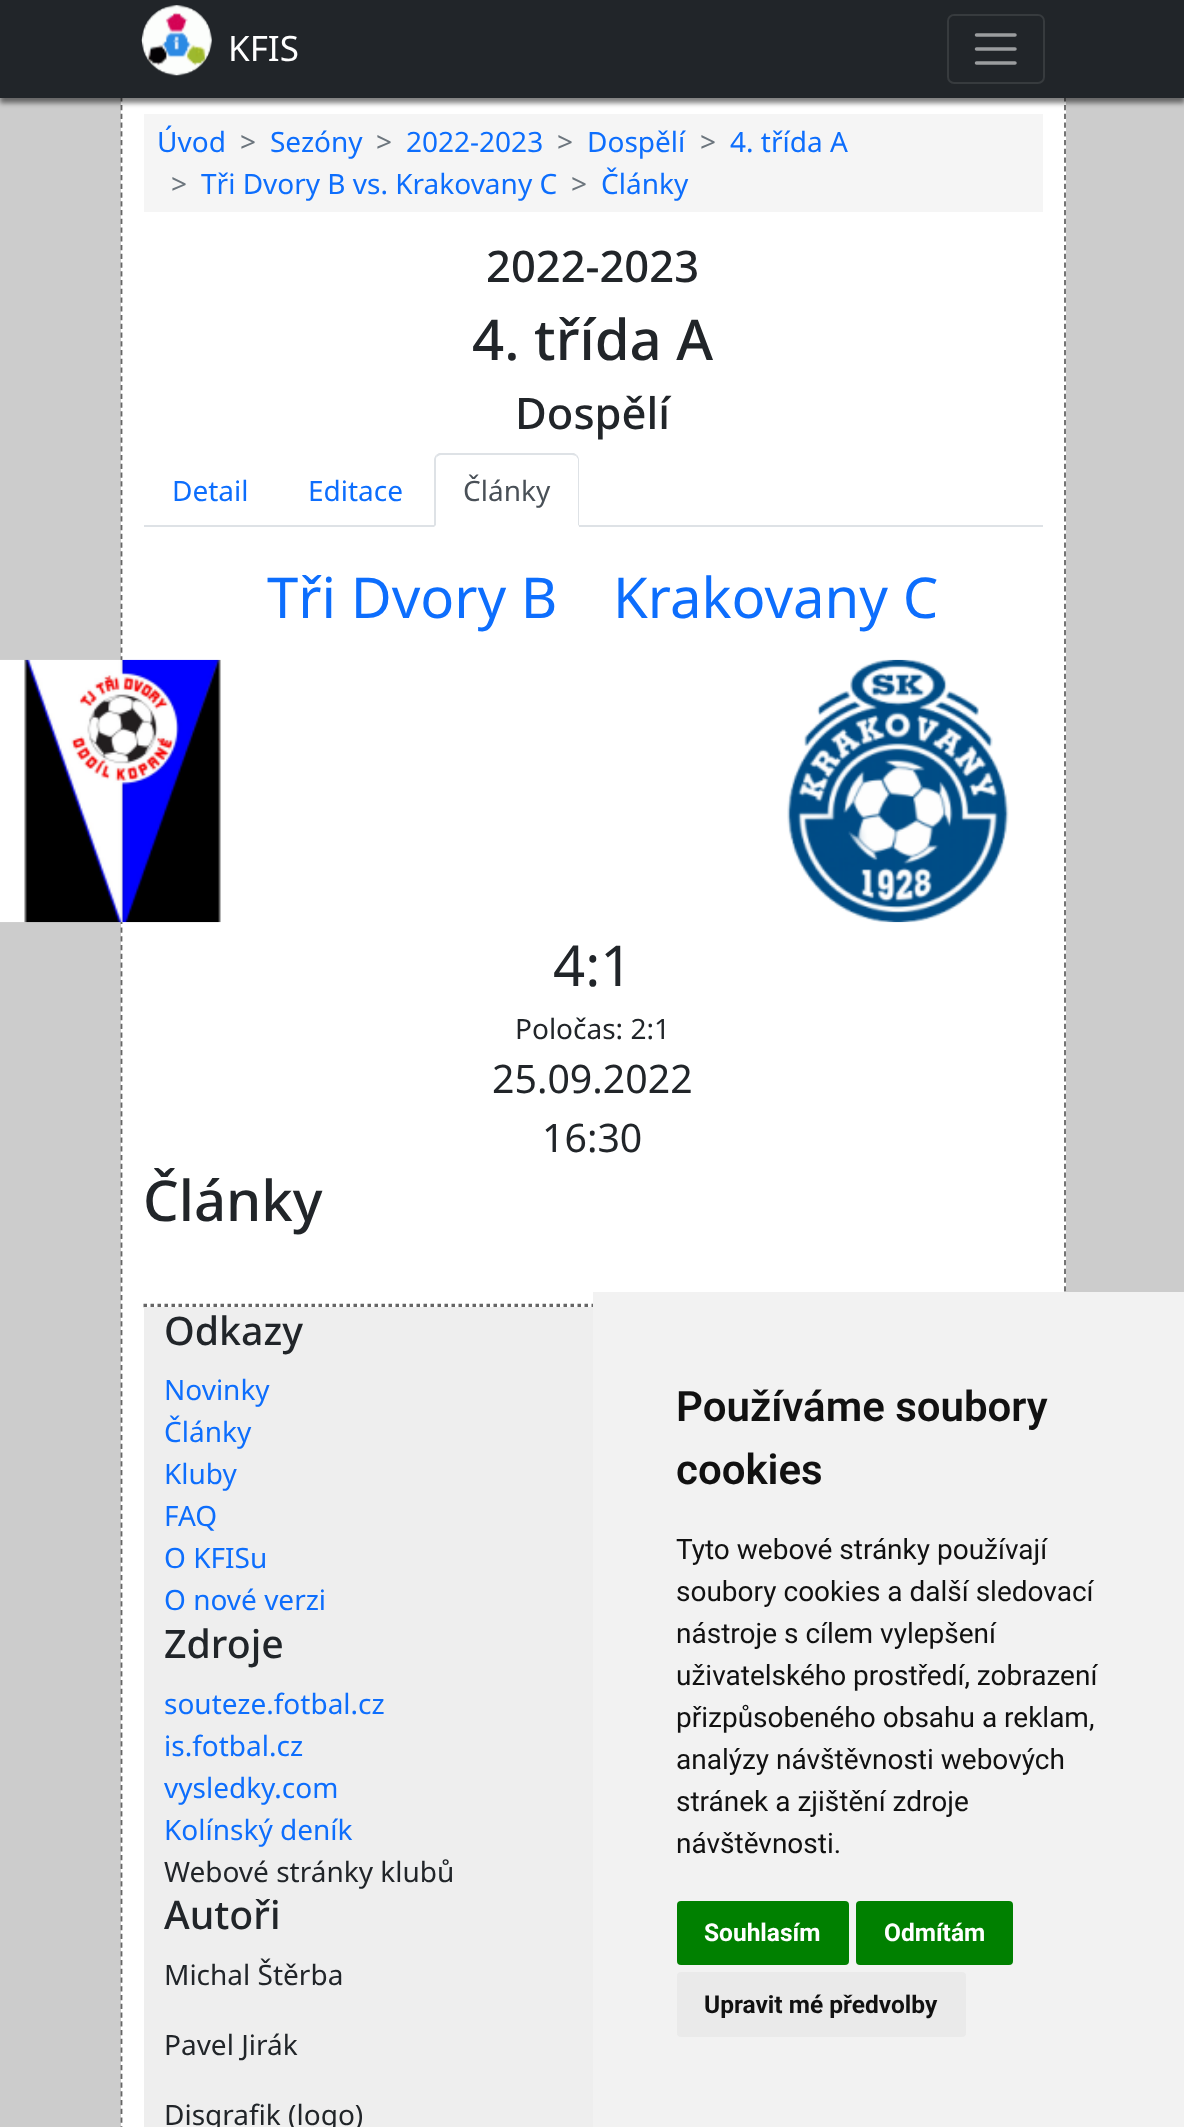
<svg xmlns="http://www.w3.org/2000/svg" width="1184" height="2127">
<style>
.a{font:35px Noto Sans;fill:#fff}
.b{font:28px Noto Sans;fill:#0d6efd}
.c{font:28px Noto Sans;fill:#6c757d}
.d{font:500 43.5px Noto Sans;fill:#212529}
.e{font:500 56.25px Noto Sans;fill:#212529}
.f{font:28px Noto Sans;fill:#495057}
.g{font:56.25px Noto Sans;fill:#0d6efd}
.h{font:56.25px Noto Sans;fill:#212529}
.i{font:28px Noto Sans;fill:#212529}
.j{font:39.25px Noto Sans;fill:#212529}
.k{font:500 39.25px Noto Sans;fill:#212529}
.l{font:600 42px Roboto;fill:#111}
.m{font:28px Roboto;fill:#111}
.n{font:bold 24.5px Roboto;fill:#fff}
.o{font:bold 24.5px Roboto;fill:#111}
</style>
<rect width="100%" height="100%" fill="#ccc"/>
<path fill="#fff" d="M121 98h945v2029H121z"/>
<path fill="none" stroke="#666" stroke-width="1.8" stroke-dasharray="5.25 3.5" d="M1065 0v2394"/>
<path fill="none" stroke="#666" stroke-width="1.8" stroke-dasharray="5.25 3.5" d="M121.5 0v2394"/>
<path fill="#00000080" filter="blur(2.5px)" d="M0 5h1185v98H0z"/>
<path fill="#212529" d="M0 0h1184v98H0z"/>
<image href="1.png" x="141" y="5" width="71" height="71"/>
<rect fill="none" stroke="#373b3e" stroke-width="2" x="948" y="15" width="96" height="68" rx="6"/>
<path fill="none" stroke="#9b9d9f" stroke-width="3.5" stroke-linecap="round" d="M976.5 35h38.5m-38.5 14h38.5m-38.5 14h38.5"/>
<path fill="#f5f5f5" d="M144 114h899v98H144z"/>
<path fill="#dee2e6" d="M144 525h899v2H144z"/>
<path fill="#fff" d="M441 453h131c4 0 7 3 7 7v67h-145v-67c0-4 3-7 7-7z"/>
<path fill="#dee2e6" d="M441 455c-2 0-3 1-4 2l-1-2l3-2h135l3 2l-1 1c-1 0-2-1-4-1z"/>
<path fill="#dee2e6" d="M577 455c1 1 2 3 2 5v66l-1-1v-66l-2-3z"/>
<path fill="#fff" d="M579 527h-145l2-2h142z"/>
<path fill="#dee2e6" d="M434 527l2-2v-65c0-1 0-3 1-3l-1-2c-1 1-2 3-2 5z"/>
<image href="2.png" x="0" y="659" width="221" height="264"/>
<image href="3.png" x="787" y="659" width="222" height="264"/>
<path fill="none" stroke="#666" stroke-width="3.5" stroke-dasharray="3.5 3.5" d="M143.5 1305.5h899.5"/>
<path fill="#eee" d="M144 1307h449v820H144z"/>
<path fill="#f2f2f2" d="M593 1292h591v835H593z"/>
<rect fill="#008000" x="677" y="1901" width="172" height="64" rx="4"/>
<rect fill="#008000" x="856" y="1901" width="157" height="64" rx="4"/>
<rect fill="#eaeaea" x="677" y="1972" width="289" height="65" rx="4"/>
<text class="a" x="228" y="61">KFIS</text>
<text class="b" x="157" y="152">Úvod</text>
<text class="c" x="240" y="152">&gt;</text>
<text class="b" x="270" y="152">Sezóny</text>
<text class="c" x="376" y="152">&gt;</text>
<text class="b" x="406" y="152">2022-2023</text>
<text class="c" x="557" y="152">&gt;</text>
<text class="b" x="587" y="152">Dospělí</text>
<text class="c" x="700" y="152">&gt;</text>
<text class="b" x="730" y="152">4. třída A</text>
<text class="c" x="171" y="194">&gt;</text>
<text class="b" x="201" y="194">Tři Dvory B vs. Krakovany C</text>
<text class="c" x="571" y="194">&gt;</text>
<text class="b" x="601" y="194">Články</text>
<text class="d" x="486" y="282">2022-2023</text>
<text class="e" x="472" y="360">4. třída A</text>
<text class="d" x="515" y="429">Dospělí</text>
<text class="b" x="172" y="501">Detail</text>
<text class="b" x="308" y="501">Editace</text>
<text class="f" x="463" y="501">Články</text>
<text class="g" x="267" y="618">Tři Dvory B</text>
<text class="g" x="613" y="618">Krakovany C</text>
<text class="h" x="553" y="986">4:1</text>
<text class="i" x="515" y="1039">Poločas: 2:1</text>
<text class="j" x="492" y="1093">25.09.2022</text>
<text class="j" x="542" y="1152">16:30</text>
<text class="e" x="143" y="1221">Články</text>
<text class="k" x="164" y="1345">Odkazy</text>
<text class="b" x="164" y="1400">Novinky</text>
<text class="b" x="164" y="1442">Články</text>
<text class="b" x="164" y="1484">Kluby</text>
<text class="b" x="164" y="1526">FAQ</text>
<text class="b" x="164" y="1568">O KFISu</text>
<text class="b" x="164" y="1610">O nové verzi</text>
<text class="k" x="164" y="1658">Zdroje</text>
<text class="b" x="164" y="1714">souteze.fotbal.cz</text>
<text class="b" x="164" y="1756">is.fotbal.cz</text>
<text class="b" x="164" y="1798">vysledky.com</text>
<text class="b" x="164" y="1840">Kolínský deník</text>
<text class="i" x="164" y="1882">Webové stránky klubů</text>
<text class="k" x="164" y="1929">Autoři</text>
<text class="i" x="164" y="1985">Michal Štěrba</text>
<text class="i" x="164" y="2055">Pavel Jirák</text>
<text class="i" x="164" y="2125">Disgrafik (logo)</text>
<text class="l" x="676" y="1421">Používáme soubory</text>
<text class="l" x="676" y="1484">cookies</text>
<text class="m" x="676" y="1559">Tyto webové stránky používají</text>
<text class="m" x="676" y="1601">soubory cookies a další sledovací</text>
<text class="m" x="676" y="1643">nástroje s cílem vylepšení</text>
<text class="m" x="676" y="1685">uživatelského prostředí, zobrazení</text>
<text class="m" x="676" y="1727">přizpůsobeného obsahu a reklam,</text>
<text class="m" x="676" y="1769">analýzy návštěvnosti webových</text>
<text class="m" x="676" y="1811">stránek a zjištění zdroje</text>
<text class="m" x="676" y="1853">návštěvnosti.</text>
<text class="n" x="704" y="1941">Souhlasím</text>
<text class="n" x="884" y="1941">Odmítám</text>
<text class="o" x="704" y="2013">Upravit mé předvolby</text>
</svg>
